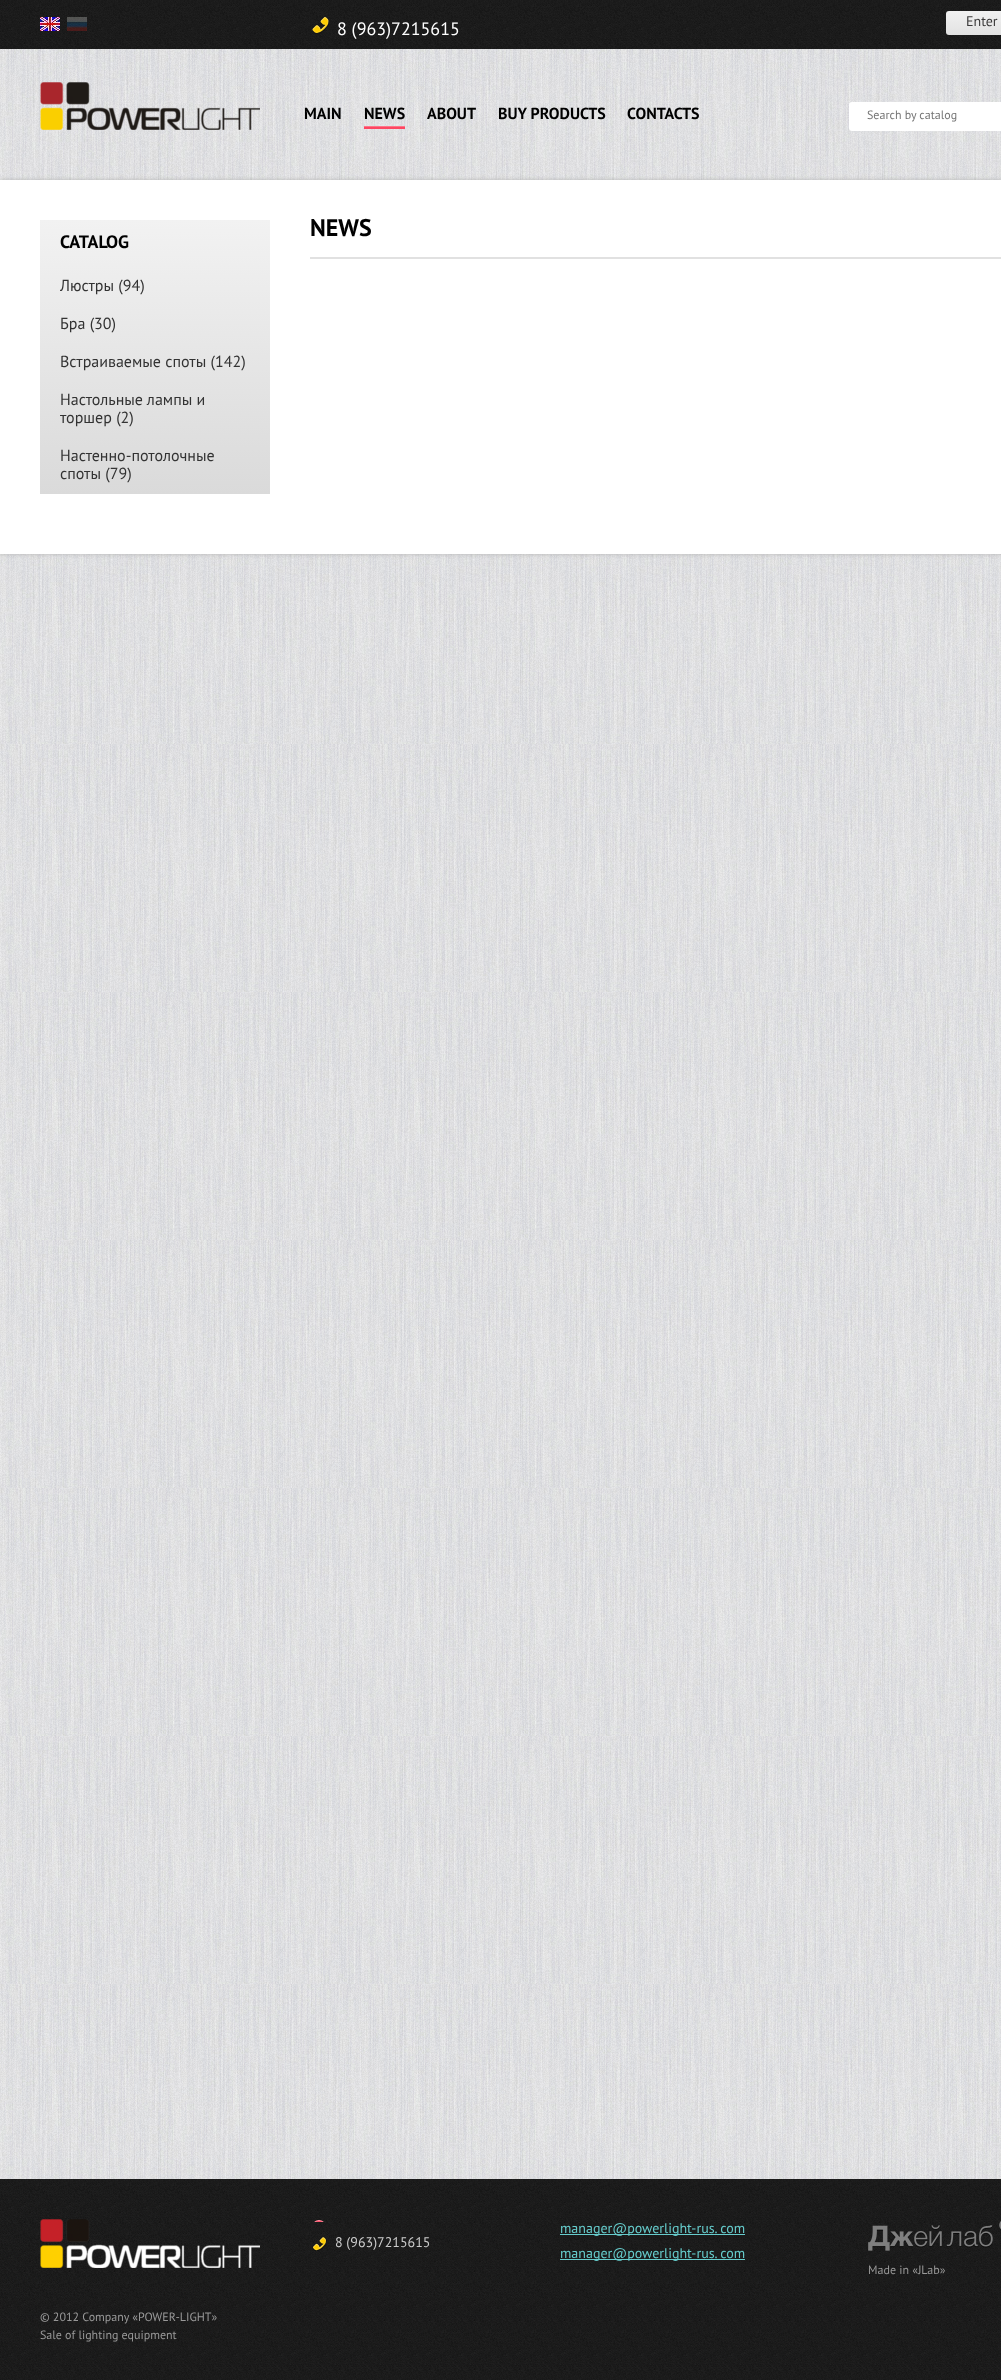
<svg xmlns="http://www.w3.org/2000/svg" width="1001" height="2380">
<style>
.a{font:18px PT Sans;fill:#fff}
.b{font:14px PT Sans;fill:#3a3939}
.c{font:bold 16px PT Sans;fill:#000}
.d{font:12px PT Sans;fill:#757575}
.e{font:bold 24px PT Sans;fill:#000}
.f{font:bold 18px PT Sans;fill:#000}
.g{font:16px PT Sans;fill:#333}
.h{font:14px PT Sans;fill:#ccc}
.i{font:14px PT Sans;fill:#6cc}
.j{font:12px PT Sans;fill:#999}
</style>
<defs>
<linearGradient id="g1" gradientUnits="userSpaceOnUse" x1="982" y1="11" x2="982" y2="35"><stop offset="0" stop-color="#f1f1f1"/><stop offset="1" stop-color="#e2e2e2"/></linearGradient>
<linearGradient id="g2" gradientUnits="userSpaceOnUse" x1="155" y1="220" x2="155" y2="494"><stop offset="0" stop-color="#f2f2f2"/><stop offset="1" stop-color="#dadada"/></linearGradient>
</defs>
<rect width="100%" height="100%" fill="#fff"/>
<image href="1.png" x="0" y="49" width="1001" height="2130"/>
<image href="2.png" x="0" y="0" width="1001" height="49"/>
<image href="3.png" x="40" y="17" width="20" height="14"/>
<image href="4.png" x="67" y="17" width="20" height="14"/>
<image href="5.png" x="312" y="17" width="17" height="17"/>
<rect fill="url(#g1)" x="946" y="11" width="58" height="24" rx="3"/>
<image href="6.png" x="40" y="82" width="220" height="48"/>
<path fill="#fe7489" d="M364 126h41v1H364z"/>
<path fill="#fd4661" d="M364 127h41v2H364z"/>
<rect fill="#fff" x="849" y="102" width="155" height="29" rx="3"/>
<path fill="#b3b4b3" filter="blur(2px)" d="M0 180h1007v374H0z"/>
<path fill="#fff" d="M0 180h1001v374H0z"/>
<path fill="#e1e1e1" d="M310 257h691v2H310z"/>
<path fill="url(#g2)" d="M40 220h230v274H40z"/>
<image href="7.png" x="0" y="2179" width="1001" height="201"/>
<image href="8.png" x="314" y="2220" width="10" height="2"/>
<image href="9.png" x="312" y="2237" width="15" height="14"/>
<path fill="#6cc" d="M560 2234h185v1H560z"/>
<path fill="#6cc" d="M560 2259h185v1H560z"/>
<image href="10.png" x="868" y="2221" width="133" height="30"/>
<image href="11.png" x="40" y="2219" width="220" height="49"/>
<text class="a" x="337" y="35">8 (963)7215615</text>
<text class="b" x="966" y="26">Enter</text>
<text class="c" x="304" y="119">MAIN</text>
<text class="c" x="364" y="119">NEWS</text>
<text class="c" x="427" y="119">ABOUT</text>
<text class="c" x="498" y="119">BUY PRODUCTS</text>
<text class="c" x="627" y="119">CONTACTS</text>
<text class="d" x="867" y="119">Search by catalog</text>
<text class="e" x="310" y="236">NEWS</text>
<text class="f" x="60" y="248">CATALOG</text>
<text class="g" x="60" y="291">Люстры (94)</text>
<text class="g" x="60" y="329">Бра (30)</text>
<text class="g" x="60" y="367">Встраиваемые споты (142)</text>
<text class="g" x="60" y="405">Настольные лампы и</text>
<text class="g" x="60" y="423">торшер (2)</text>
<text class="g" x="60" y="461">Настенно-потолочные</text>
<text class="g" x="60" y="479">споты (79)</text>
<text class="h" x="335" y="2247">8 (963)7215615</text>
<text class="i" x="560" y="2233">manager@powerlight-rus. com</text>
<text class="i" x="560" y="2258">manager@powerlight-rus. com</text>
<text class="j" x="868" y="2274">Made in «JLab»</text>
<text class="j" x="40" y="2321">© 2012 Company «POWER-LIGHT»</text>
<text class="j" x="40" y="2339">Sale of lighting equipment</text>
</svg>
